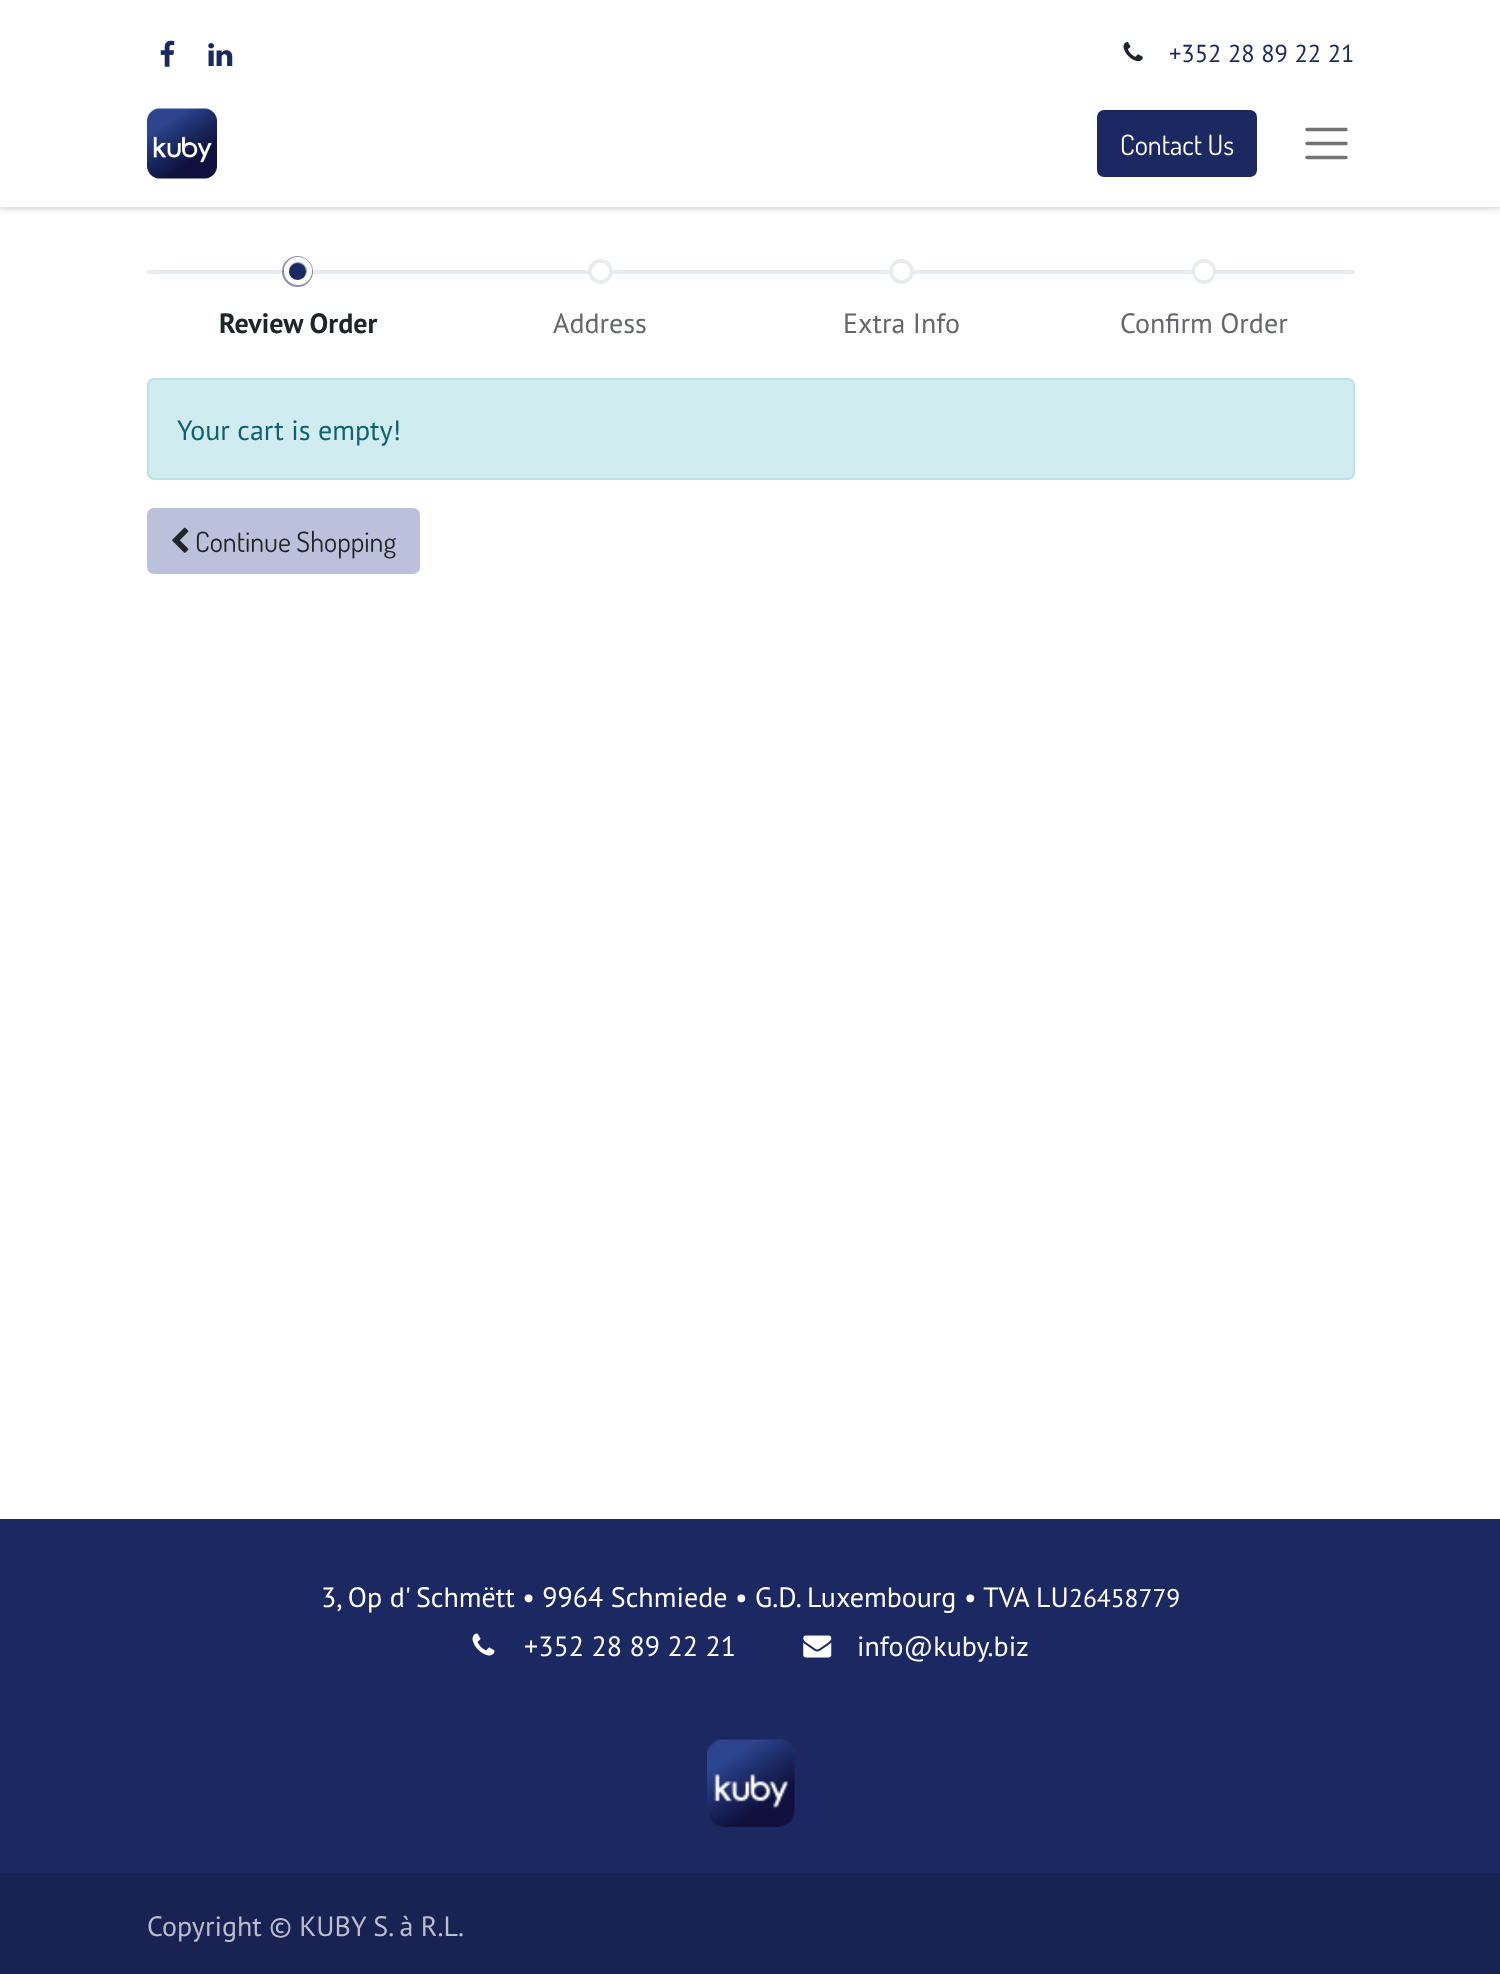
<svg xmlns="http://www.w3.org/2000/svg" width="1500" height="1974">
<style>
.a{font:24.5px PT Sans;fill:#1c2862}
.b{font:28px Dosis;fill:#fff}
.c{font:bold 28px PT Sans;fill:#212529}
.d{font:28px PT Sans;fill:#646669}
.e{font:28px PT Sans;fill:#0e616e}
.f{font:28px Dosis;fill:#212529}
.g{font:28px PT Sans;fill:#fff}
.h{font:25.5px PT Sans;fill:#fff}
.i{font:28px PT Sans;fill:#f8f9fb}
.j{font:28px PT Sans;fill:#babdcb}
</style>
<rect width="100%" height="100%" fill="#fff"/>
<path fill="#00000040" filter="blur(4.5px)" d="M0 0h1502v207H0z"/>
<path fill="#fff" d="M0 0h1500v207H0z"/>
<image href="1.png" x="160" y="40" width="15" height="27"/>
<image href="2.png" x="208" y="43" width="25" height="23"/>
<image href="3.png" x="1123" y="42" width="20" height="20"/>
<image href="4.png" x="147" y="108" width="70" height="71"/>
<rect fill="#1c2862" stroke="#1c2862" stroke-width="2" x="1098" y="111" width="158" height="65" rx="6"/>
<path fill="none" stroke="#737373" stroke-width="3.5" stroke-linecap="round" d="M1307 129.5h39m-39 14h39m-39 14h39"/>
<path fill="#e9ecef" d="M147 270h1208v4H147z"/>
<circle fill="none" stroke="#1c286280" stroke-width="7" cx="297.5" cy="271.5" r="12"/>
<circle fill="none" stroke="#fff" stroke-width="5" cx="298" cy="271" r="11.5"/>
<circle fill="#1c2862" cx="297.5" cy="271.5" r="8.5"/>
<circle fill="none" stroke="#e9ecef" stroke-width="4" cx="600.5" cy="271.5" r="10.5"/>
<circle fill="#fff" cx="600.5" cy="271.5" r="8.5"/>
<circle fill="none" stroke="#e9ecef" stroke-width="4" cx="901.5" cy="271.5" r="10.5"/>
<circle fill="#fff" cx="901.5" cy="271.5" r="8.5"/>
<rect fill="none" stroke="#e9ecef" stroke-width="4" x="1194" y="261" width="20" height="21" rx="10"/>
<rect fill="#fff" x="1195" y="263" width="18" height="17" rx="8.5"/>
<rect fill="#d1ecf1" stroke="#b9e3ea" stroke-width="2" x="148" y="379" width="1206" height="100" rx="6"/>
<rect fill="#bbc1da" stroke="#bbc1da" stroke-width="2" x="148" y="509" width="271" height="64" rx="6"/>
<image href="5.png" x="172" y="527" width="17" height="26"/>
<path fill="#1c2862" d="M0 1519h1500v354H0z"/>
<image href="6.png" x="472" y="1633" width="23" height="23"/>
<image href="7.png" x="803" y="1635" width="29" height="23"/>
<image href="8.png" x="707" y="1739" width="88" height="88"/>
<path fill="#182253" d="M0 1873h1500v101H0z"/>
<text class="a" x="1169" y="62">+352 28 89 22 21</text>
<text class="b" x="1120" y="155">Contact Us</text>
<text class="c" x="219" y="333">Review Order</text>
<text class="d" x="553" y="333">Address</text>
<text class="d" x="843" y="333">Extra Info</text>
<text class="d" x="1120" y="333">Confirm Order</text>
<text class="e" x="177" y="440">Your cart is empty!</text>
<text class="f" x="195" y="552">Continue Shopping</text>
<text class="g" x="321" y="1607">3, Op d' Schmëtt • 9964 Schmiede • G.D. Luxembourg • TVA LU</text>
<text class="h" x="1069" y="1607">26458779</text>
<text class="i" x="524" y="1656">+352 28 89 22 21</text>
<text class="i" x="857" y="1656">info@kuby.biz</text>
<text class="j" x="147" y="1936">Copyright © KUBY S. à R.L.</text>
</svg>
